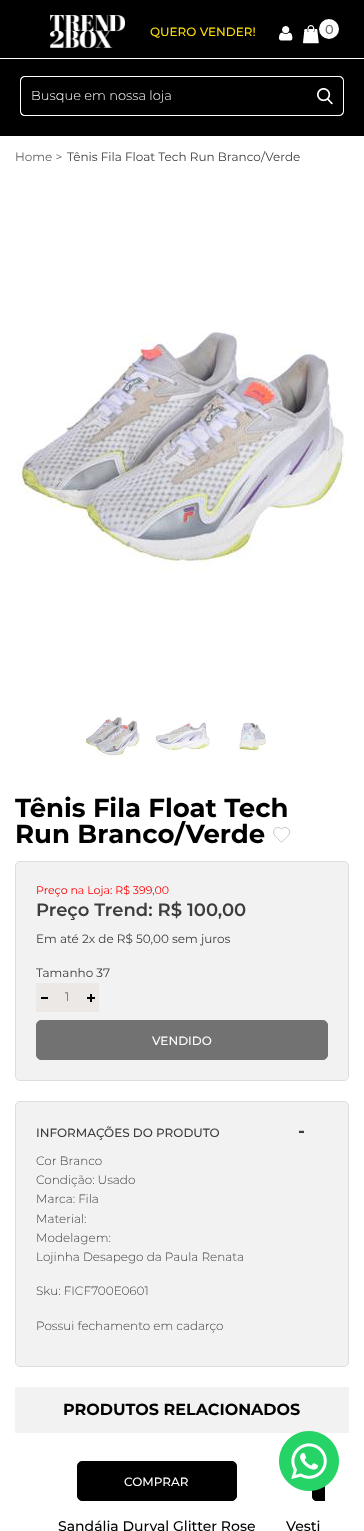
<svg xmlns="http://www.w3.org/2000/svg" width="364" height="1531">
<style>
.a{font:500 12px Montserrat;fill:#ffde00}
.b{font:500 13px Montserrat;fill:#707070}
.c{font:300 13px Montserrat;fill:#fff}
.d{font:12px Montserrat;fill:#646464}
.e{font:12px Montserrat;fill:#3d3d3d}
.f{font:bold 26px Montserrat;fill:#000}
.g{font:11px Montserrat;fill:#f00}
.h{font:600 18px Montserrat;fill:#3d3d3d}
.i{font:300 12px Montserrat;fill:#3d3d3d}
.j{font:500 12px Montserrat;fill:#fff}
.k{font:500 12px Montserrat;fill:#3d3d3d}
.l{font:bold 18px Montserrat;fill:#3d3d3d}
.m{font:bold 16px Montserrat;fill:#000}
.n{font:500 14px Montserrat;fill:#000}
</style>
<defs>
<clipPath id="clip1"><path d="M39 1437h286v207H39z"/></clipPath>
</defs>
<rect width="100%" height="100%" fill="#fff"/>
<path fill="#000" d="M0 0h364v136H0z"/>
<image href="1.png" x="50" y="15" width="75" height="33"/>
<image href="2.png" x="279" y="26" width="14" height="15"/>
<image href="3.png" x="303" y="25" width="16" height="19"/>
<circle fill="#fff" cx="329" cy="29" r="10"/>
<path fill="#fff" fill-rule="evenodd" d="M25 76h270v40h-270c-3 0-5-2-5-5v-30c0-3 2-5 5-5zm0 1h270v38h-270c-2 0-4-2-4-4v-30c0-2 2-4 4-4z"/>
<image href="4.png" x="317" y="88" width="16" height="17"/>
<path fill="#fff" fill-rule="evenodd" d="M295 76h44c3 0 5 2 5 5v30c0 3-2 5-5 5h-44zm0 1h44c2 0 4 2 4 4v30c0 2-2 4-4 4h-44z"/>
<path fill="#fff" d="M0 58h364v1H0z"/>
<image href="5.png" x="17" y="327" width="331" height="245"/>
<image href="6.png" x="85" y="715" width="55" height="45"/>
<image href="7.png" x="155" y="720" width="55" height="32"/>
<image href="8.png" x="237" y="720" width="30" height="32"/>
<image href="9.png" x="273" y="827" width="17" height="16"/>
<rect fill="#f2f2f3" stroke="#dedee0" x="15.5" y="861.5" width="333" height="219" rx="4.5"/>
<path fill="#ece8e5" d="M36 983h63v29H36z"/>
<path fill="#000" d="M41 997h7v2H41z"/>
<image href="10.png" x="87" y="994" width="8" height="8"/>
<rect fill="#727272" stroke="#727272" x="36.5" y="1020.5" width="291" height="39" rx="4.5"/>
<rect fill="#f2f2f3" stroke="#dedee0" x="15.5" y="1101.5" width="333" height="265" rx="4.5"/>
<path fill="#f2f2f3" d="M15 1387h334v46H15z"/>
<rect fill="#000" stroke="#000" x="77.5" y="1461.5" width="159" height="39" rx="4.5"/>
<path fill="#000" d="M317 1461h8v40h-8c-3 0-5-2-5-5v-30c0-3 2-5 5-5z"/>
<g clip-path="url(#clip1)">
<rect fill="none" stroke="#000" x="312.5" y="1461.5" width="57" height="39" rx="4.5"/>
</g>
<image href="11.png" x="279" y="1431" width="60" height="60"/>
<text class="a" x="150" y="36">QUERO VENDER!</text>
<text class="b" x="325" y="34">0</text>
<text class="c" x="31" y="100">Busque em nossa loja</text>
<text class="d" x="15" y="161">Home &gt;</text>
<text class="e" x="67" y="161">Tênis Fila Float Tech Run Branco/Verde</text>
<text class="f" x="15" y="817">Tênis Fila Float Tech</text>
<text class="f" x="15" y="843">Run Branco/Verde</text>
<text class="g" x="36" y="894">Preço na Loja: R$ 399,00</text>
<text class="h" x="36" y="916">Preço Trend: R$ 100,00</text>
<text class="e" x="36" y="943">Em até 2x de R$ 50,00 sem juros</text>
<text class="e" x="36" y="977">Tamanho 37</text>
<text class="i" x="65" y="1001">1</text>
<text class="j" x="152" y="1045">VENDIDO</text>
<text class="k" x="36" y="1137">INFORMAÇÕES DO PRODUTO</text>
<text class="l" x="298" y="1137">-</text>
<text class="i" x="36" y="1165">Cor Branco</text>
<text class="i" x="36" y="1184">Condição: Usado</text>
<text class="i" x="36" y="1203">Marca: Fila</text>
<text class="i" x="36" y="1223">Material:</text>
<text class="i" x="36" y="1242">Modelagem:</text>
<text class="i" x="36" y="1261">Lojinha Desapego da Paula Renata</text>
<text class="i" x="36" y="1295">Sku: FICF700E0601</text>
<text class="i" x="36" y="1330">Possui fechamento em cadarço</text>
<text class="m" x="63" y="1415">PRODUTOS RELACIONADOS</text>
<text class="j" x="124" y="1486">COMPRAR</text>
<text class="n" x="58" y="1531">Sandália Durval Glitter Rose</text>
<text class="n" x="286" y="1531">Vesti</text>
</svg>
